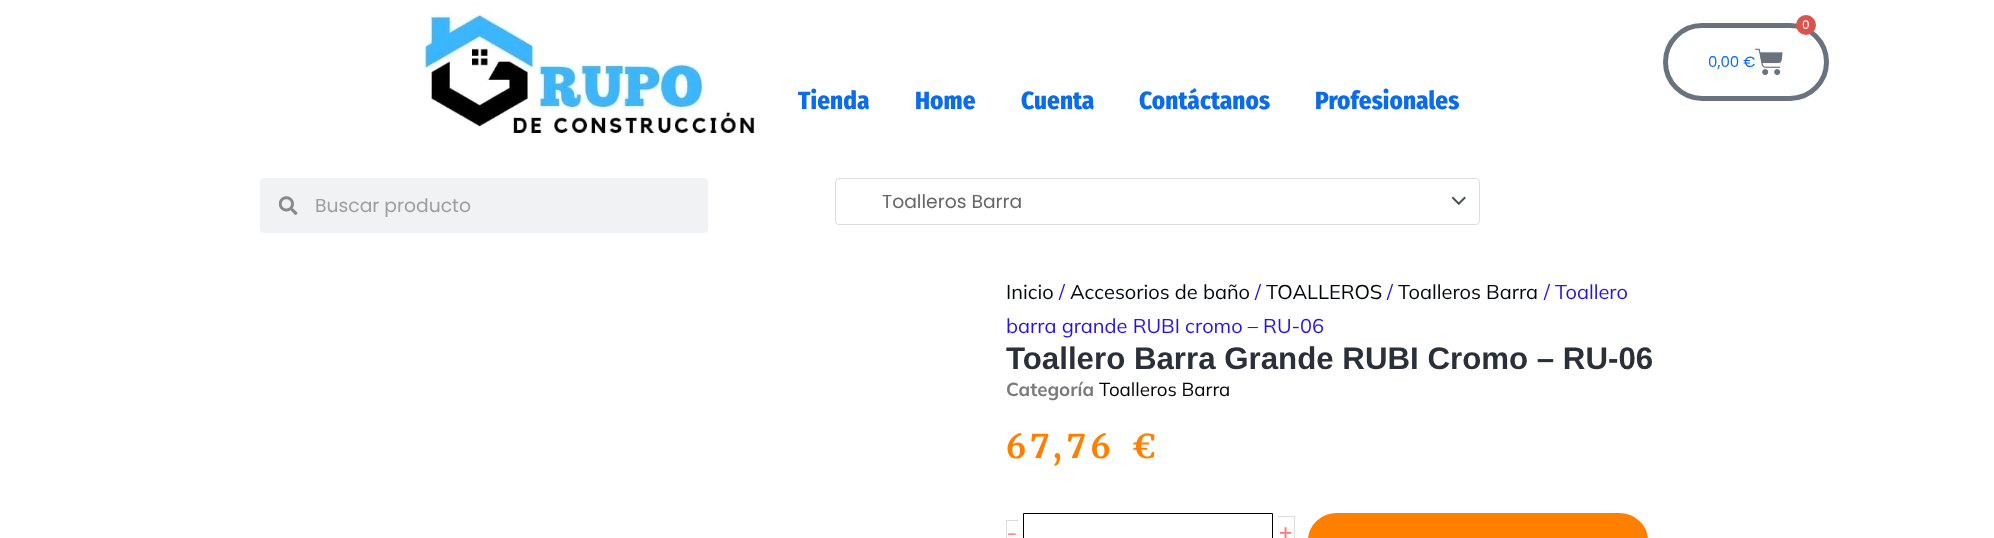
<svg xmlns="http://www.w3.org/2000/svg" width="1994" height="538">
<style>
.a{font:12px Poppins;fill:#fff}
.b{font:15px Poppins;fill:#0a6cea}
.c{font:800 25px Fira Sans Condensed;letter-spacing:0.1px;fill:#0a6cea}
.d{font:18.75px Poppins;fill:#9e9e9e}
.e{font:18.75px Poppins;fill:#666}
.f{font:20px Mulish;fill:#01040a}
.g{font:20px Mulish;fill:#2413e2}
.h{font:bold 31.25px Arimo;fill:#2b2f38}
.i{font:bold 18.75px Mulish;fill:#7a7a7a}
.j{font:18.75px Mulish;fill:#000}
.k{font:bold 32.5px Merriweather;letter-spacing:6.75px;fill:#ff8000}
.l{font:18.75px Poppins;fill:#fc7978}
.m{font:22px Poppins;fill:#fc7978}
</style>
<rect width="100%" height="100%" fill="#fff"/>
<image href="1.png" x="423" y="12" width="332" height="123"/>
<rect fill="none" stroke="#69727d" stroke-width="5" x="1665.5" y="25.5" width="161" height="73" rx="36.5"/>
<circle fill="#d9534f" cx="1806" cy="25" r="10"/>
<image href="2.png" x="1755" y="48" width="28" height="27"/>
<rect fill="#f1f2f3" x="260" y="178" width="448" height="55" rx="4"/>
<image href="3.png" x="279" y="196" width="19" height="19"/>
<image href="4.png" x="1451" y="196" width="15" height="10"/>
<rect fill="none" stroke="#ddd" x="835.5" y="178.5" width="644" height="46" rx="3.5"/>
<path fill="#ddd" d="M1006 520h12v1H1006z"/>
<path fill="#ddd" d="M1006 520h1v18H1006z"/>
<path fill="none" stroke="#000" d="M1023.5 513.5h249v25H1023.5z"/>
<path fill="#ddd" d="M1278 516h17v1H1278z"/>
<path fill="#ddd" d="M1294 516h1v22H1294z"/>
<rect fill="#ff8000" x="1308" y="513" width="340" height="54" rx="29"/>
<text class="a" x="1802" y="29">0</text>
<text class="b" x="1708" y="67">0,00 €</text>
<text class="c" x="798" y="109">Tienda</text>
<text class="c" x="915" y="109">Home</text>
<text class="c" x="1021" y="109">Cuenta</text>
<text class="c" x="1139" y="109">Contáctanos</text>
<text class="c" x="1315" y="109">Profesionales</text>
<text class="d" x="315" y="212">Buscar producto</text>
<text class="e" x="882" y="208">Toalleros Barra</text>
<text class="f" x="1006" y="299">Inicio</text>
<text class="g" x="1059" y="299">/</text>
<text class="f" x="1070" y="299">Accesorios de baño</text>
<text class="g" x="1255" y="299">/</text>
<text class="f" x="1266" y="299">TOALLEROS</text>
<text class="g" x="1387" y="299">/</text>
<text class="f" x="1398" y="299">Toalleros Barra</text>
<text class="g" x="1544" y="299">/ Toallero</text>
<text class="g" x="1006" y="333">barra grande RUBI cromo – RU-06</text>
<text class="h" x="1006" y="369">Toallero Barra Grande RUBI Cromo – RU-06</text>
<text class="i" x="1006" y="396">Categoría</text>
<text class="j" x="1099" y="396">Toalleros Barra</text>
<text class="k" x="1006" y="458">67,76 €</text>
<text class="l" x="1007" y="541">-</text>
<text class="m" x="1278" y="541">+</text>
</svg>
